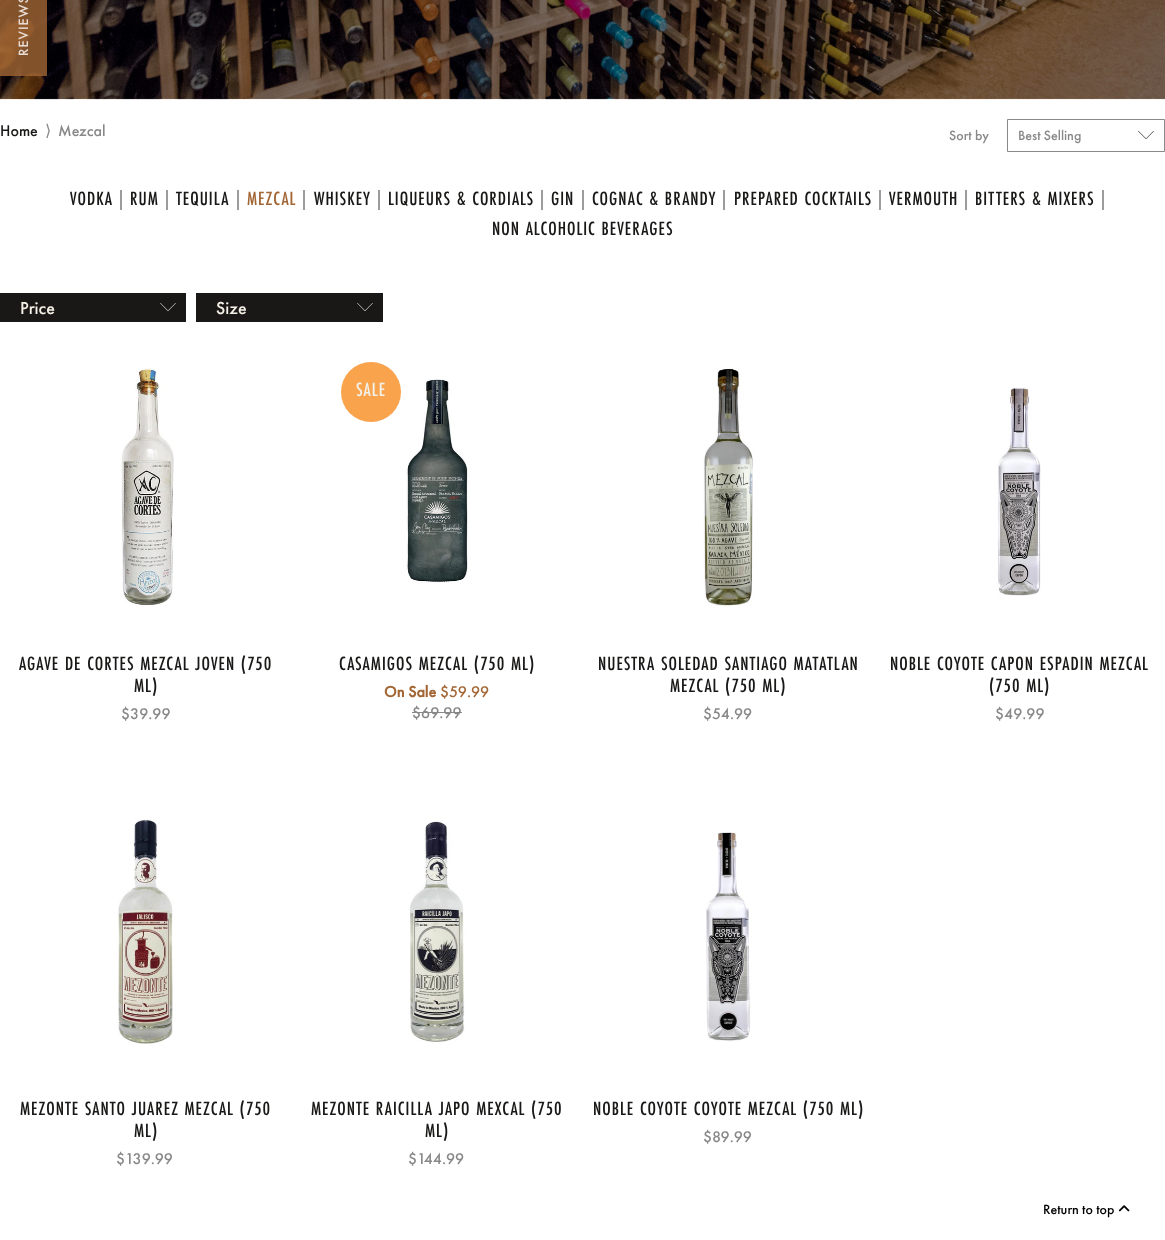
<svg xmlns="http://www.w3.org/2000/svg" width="1165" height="1240">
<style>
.a{font:500 14px Futura PT;letter-spacing:1px;fill:#e8ddd5}
.b{font:500 16px Futura PT;fill:#191817}
.c{font:16px DejaVu Sans;fill:#888}
.d{font:500 16px Futura PT;fill:#888}
.e{font:500 14px Futura PT;fill:#888}
.f{font:500 20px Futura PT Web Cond;letter-spacing:1px;fill:#191817}
.g{font:500 20px Futura PT Web Cond;letter-spacing:1px;fill:#888}
.h{font:500 20px Futura PT Web Cond;letter-spacing:1px;fill:#a36635}
.i{font:500 18px Futura PT;fill:#f3f0e6}
.j{font:500 20px Futura PT Web Cond;letter-spacing:1px;fill:#f3f0e6}
.k{font:bold 16px Futura PT;fill:#a36635}
.l{font:500 16px Futura PT;fill:#a36635}
.m{font:500 14px Futura PT;fill:#000}
</style>
<rect width="100%" height="100%" fill="#fff"/>
<image href="1.png" x="0" y="0" width="1165" height="100"/>
<path fill="#a36635cc" d="M0 0h47v76H0z"/>
<image href="2.png" x="1138" y="131" width="16" height="8"/>
<path fill="none" stroke="#888" d="M1007.5 119.5h157v32H1007.5z"/>
<path fill="#191817" d="M0 293h186v29H0z"/>
<image href="3.png" x="160" y="303" width="16" height="8"/>
<path fill="#191817" d="M196 293h187v29H196z"/>
<image href="3.png" x="357" y="303" width="16" height="8"/>
<image href="4.png" x="121" y="368" width="53" height="238"/>
<circle fill="#f9a34d" cx="371" cy="392" r="30"/>
<image href="5.png" x="406" y="379" width="62" height="204"/>
<path fill="#888" d="M412 712h50v1H412z"/>
<image href="6.png" x="703" y="368" width="50" height="239"/>
<image href="7.png" x="997" y="387" width="44" height="209"/>
<image href="8.png" x="118" y="819" width="55" height="226"/>
<image href="9.png" x="410" y="821" width="55" height="221"/>
<image href="10.png" x="706" y="832" width="45" height="210"/>
<image href="11.png" x="1118" y="1205" width="12" height="7"/>
<text class="a" x="28" y="56" transform="rotate(-90 28 56)">REVIEWS</text>
<text class="b" x="0" y="136">Home</text>
<text class="c" x="45" y="136">⟩</text>
<text class="d" x="58" y="136">Mezcal</text>
<text class="e" x="949" y="140">Sort by</text>
<text class="e" x="1018" y="140">Best Selling</text>
<text class="f" x="70" y="205">VODKA</text>
<text class="g" x="116" y="205">|</text>
<text class="f" x="130" y="205">RUM</text>
<text class="g" x="162" y="205">|</text>
<text class="f" x="176" y="205">TEQUILA</text>
<text class="g" x="233" y="205">|</text>
<text class="h" x="247" y="205">MEZCAL</text>
<text class="g" x="299" y="205">|</text>
<text class="f" x="314" y="205">WHISKEY</text>
<text class="g" x="374" y="205">|</text>
<text class="f" x="388" y="205">LIQUEURS &amp; CORDIALS</text>
<text class="g" x="537" y="205">|</text>
<text class="f" x="551" y="205">GIN</text>
<text class="g" x="578" y="205">|</text>
<text class="f" x="592" y="205">COGNAC &amp; BRANDY</text>
<text class="g" x="719" y="205">|</text>
<text class="f" x="734" y="205">PREPARED COCKTAILS</text>
<text class="g" x="875" y="205">|</text>
<text class="f" x="889" y="205">VERMOUTH</text>
<text class="g" x="961" y="205">|</text>
<text class="f" x="975" y="205">BITTERS &amp; MIXERS</text>
<text class="g" x="1098" y="205">|</text>
<text class="f" x="492" y="235">NON ALCOHOLIC BEVERAGES</text>
<text class="i" x="20" y="314">Price</text>
<text class="i" x="216" y="314">Size</text>
<text class="f" x="19" y="670">AGAVE DE CORTES MEZCAL JOVEN (750</text>
<text class="f" x="134" y="692">ML)</text>
<text class="d" x="121" y="719">$39.99</text>
<text class="j" x="356" y="396">SALE</text>
<text class="f" x="339" y="670">CASAMIGOS MEZCAL (750 ML)</text>
<text class="k" x="384" y="697">On Sale</text>
<text class="l" x="440" y="697">$59.99</text>
<text class="d" x="412" y="718">$69.99</text>
<text class="f" x="598" y="670">NUESTRA SOLEDAD SANTIAGO MATATLAN</text>
<text class="f" x="670" y="692">MEZCAL (750 ML)</text>
<text class="d" x="703" y="719">$54.99</text>
<text class="f" x="890" y="670">NOBLE COYOTE CAPON ESPADIN MEZCAL</text>
<text class="f" x="989" y="692">(750 ML)</text>
<text class="d" x="995" y="719">$49.99</text>
<text class="f" x="20" y="1115">MEZONTE SANTO JUAREZ MEZCAL (750</text>
<text class="f" x="134" y="1137">ML)</text>
<text class="d" x="116" y="1164">$139.99</text>
<text class="f" x="311" y="1115">MEZONTE RAICILLA JAPO MEXCAL (750</text>
<text class="f" x="425" y="1137">ML)</text>
<text class="d" x="408" y="1164">$144.99</text>
<text class="f" x="593" y="1115">NOBLE COYOTE COYOTE MEZCAL (750 ML)</text>
<text class="d" x="703" y="1142">$89.99</text>
<text class="m" x="1043" y="1214">Return to top</text>
</svg>
